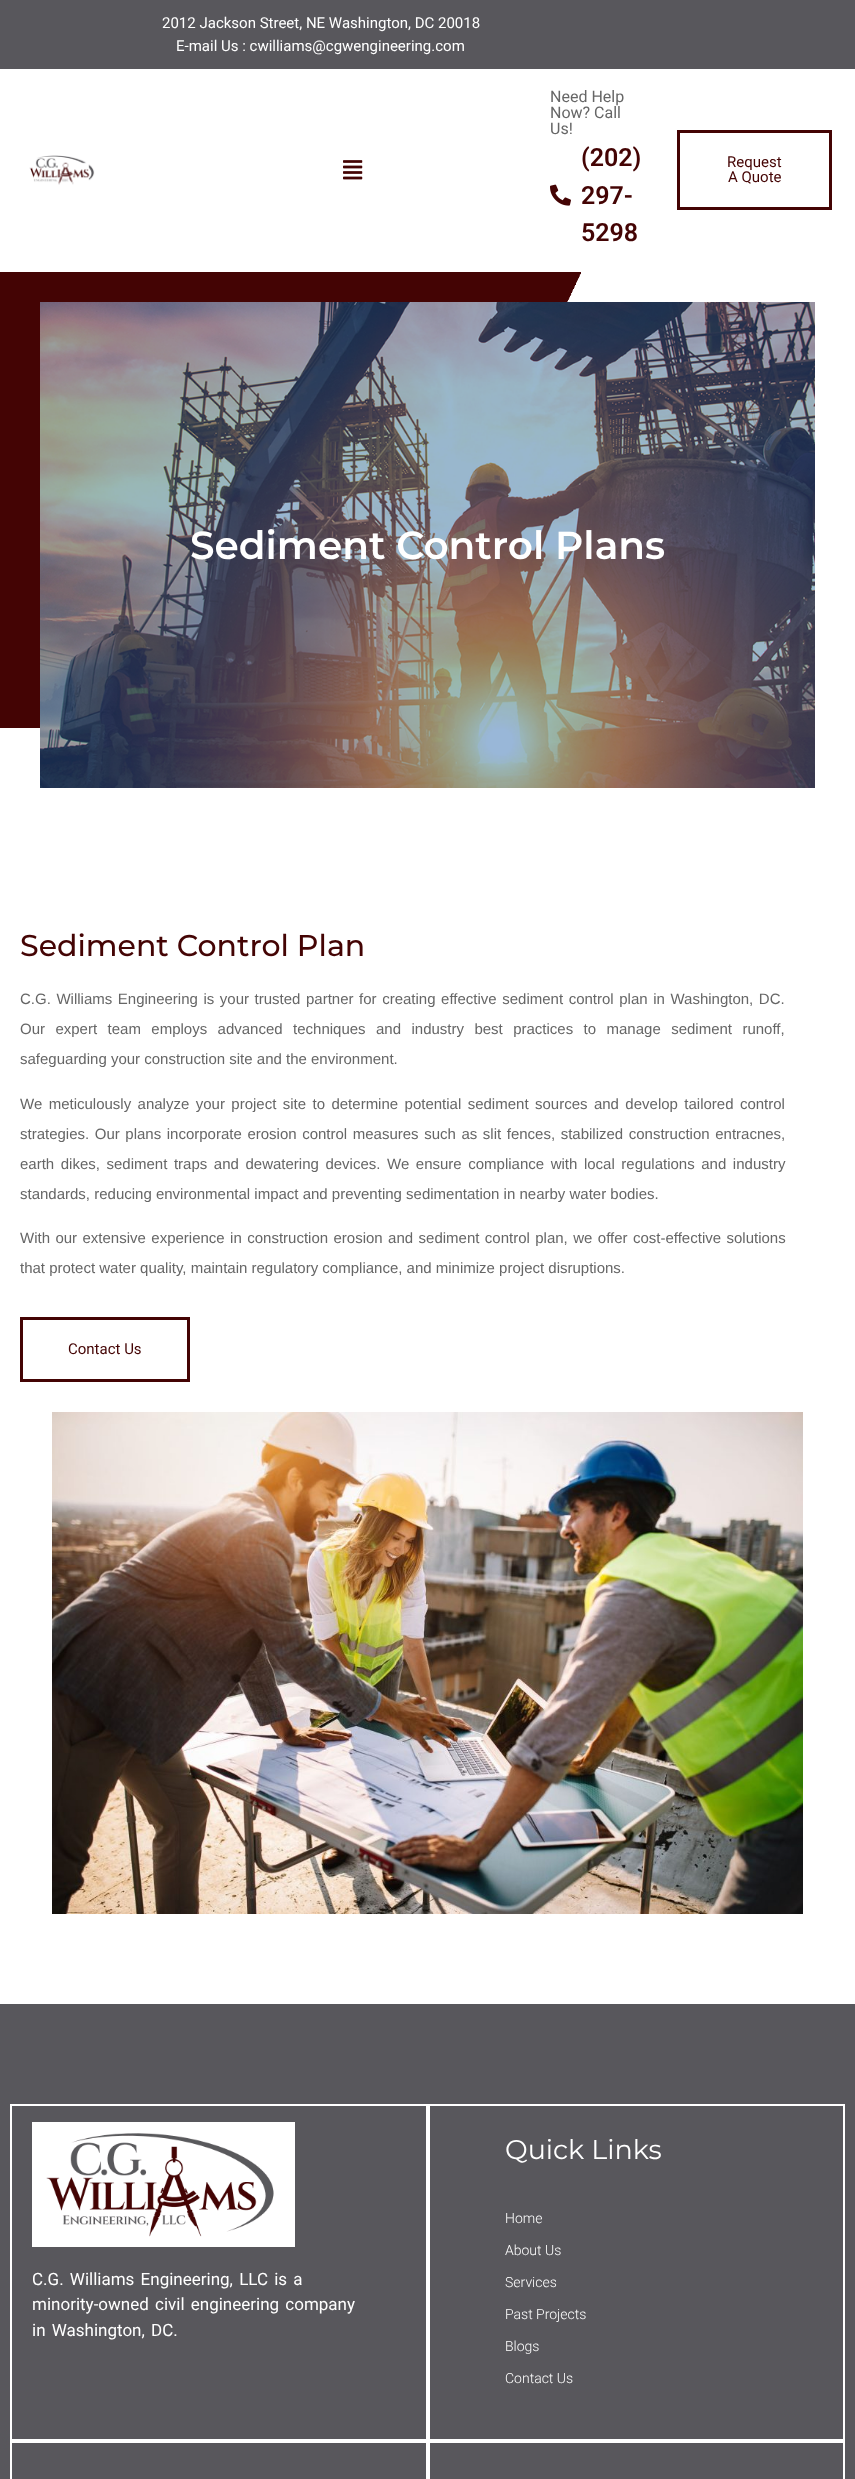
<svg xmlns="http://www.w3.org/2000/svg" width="855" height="2479">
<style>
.a{font:15px Roboto;fill:#fff}
.b{font:16px Roboto;fill:#666}
.c{font:600 25px Roboto;fill:#440404}
.d{font:15px Roboto;fill:#440404}
.e{font:600 39px Montserrat;fill:#fff}
.f{font:500 30px Montserrat;fill:#440404}
.g{font:15px Liberation Sans;fill:#666}
.h{font:17px Roboto;fill:#fff}
.i{font:27px Montserrat;fill:#fff}
.j{font:300 14px Roboto;fill:#fff}
</style>
<rect width="100%" height="100%" fill="#fff"/>
<path fill="#58575c" d="M0 0h855v69H0z"/>
<image href="1.png" x="29" y="155" width="66" height="30"/>
<image href="2.png" x="343" y="160" width="20" height="20"/>
<image href="3.png" x="550" y="184" width="21" height="22"/>
<path fill="none" stroke="#440404" stroke-width="3" d="M678.5 131.5h152v77H678.5z"/>
<image href="4.png" x="0" y="272" width="581" height="456"/>
<image href="5.png" x="40" y="302" width="775" height="486"/>
<path fill="none" stroke="#440404" stroke-width="3" d="M21.5 1318.5h167v62H21.5z"/>
<image href="6.png" x="52" y="1412" width="751" height="502"/>
<path fill="#58575c" d="M0 2004h855v475H0z"/>
<path fill="none" stroke="#fff" stroke-width="2" d="M11 2105h416v335H11z"/>
<image href="7.png" x="32" y="2122" width="263" height="125"/>
<path fill="none" stroke="#fff" stroke-width="2" d="M429 2105h415v335H429z"/>
<path fill="none" stroke="#fff" stroke-width="2" d="M11 2442h416v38H11z"/>
<path fill="none" stroke="#fff" stroke-width="2" d="M429 2442h415v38H429z"/>
<text class="a" x="162" y="28">2012 Jackson Street, NE Washington, DC 20018</text>
<text class="a" x="176" y="51">E-mail Us : cwilliams@cgwengineering.com</text>
<text class="b" x="550" y="102">Need Help</text>
<text class="b" x="550" y="118">Now? Call</text>
<text class="b" x="550" y="134">Us!</text>
<text class="c" x="581" y="166">(202)</text>
<text class="c" x="581" y="204">297-</text>
<text class="c" x="581" y="241">5298</text>
<text class="d" x="727" y="167">Request</text>
<text class="d" x="728" y="182">A Quote</text>
<text class="e" x="190" y="559">Sediment Control Plans</text>
<text class="f" x="20" y="956">Sediment Control Plan</text>
<text class="g" x="20" y="1004" word-spacing="1.4">C.G. Williams Engineering is your trusted partner for creating effective sediment control plan in Washington, DC.</text>
<text class="g" x="20" y="1034" word-spacing="6.25">Our expert team employs advanced techniques and industry best practices to manage sediment runoff,</text>
<text class="g" x="20" y="1064">safeguarding your construction site and the environment.</text>
<text class="g" x="20" y="1109" word-spacing="2.25">We meticulously analyze your project site to determine potential sediment sources and develop tailored control</text>
<text class="g" x="20" y="1139" word-spacing="1.4">strategies. Our plans incorporate erosion control measures such as slit fences, stabilized construction entracnes,</text>
<text class="g" x="20" y="1169" word-spacing="2.4">earth dikes, sediment traps and dewatering devices. We ensure compliance with local regulations and industry</text>
<text class="g" x="20" y="1199">standards, reducing environmental impact and preventing sedimentation in nearby water bodies.</text>
<text class="g" x="20" y="1243" word-spacing="1.25">With our extensive experience in construction erosion and sediment control plan, we offer cost-effective solutions</text>
<text class="g" x="20" y="1273">that protect water quality, maintain regulatory compliance, and minimize project disruptions.</text>
<text class="d" x="68" y="1354">Contact Us</text>
<text class="h" x="32" y="2285" word-spacing="2">C.G. Williams Engineering, LLC is a</text>
<text class="h" x="32" y="2310" word-spacing="2">minority-owned civil engineering company</text>
<text class="h" x="32" y="2336" word-spacing="2">in Washington, DC.</text>
<text class="i" x="505" y="2159">Quick Links</text>
<text class="j" x="505" y="2223">Home</text>
<text class="j" x="505" y="2255">About Us</text>
<text class="j" x="505" y="2287">Services</text>
<text class="j" x="505" y="2319">Past Projects</text>
<text class="j" x="505" y="2351">Blogs</text>
<text class="j" x="505" y="2383">Contact Us</text>
</svg>
